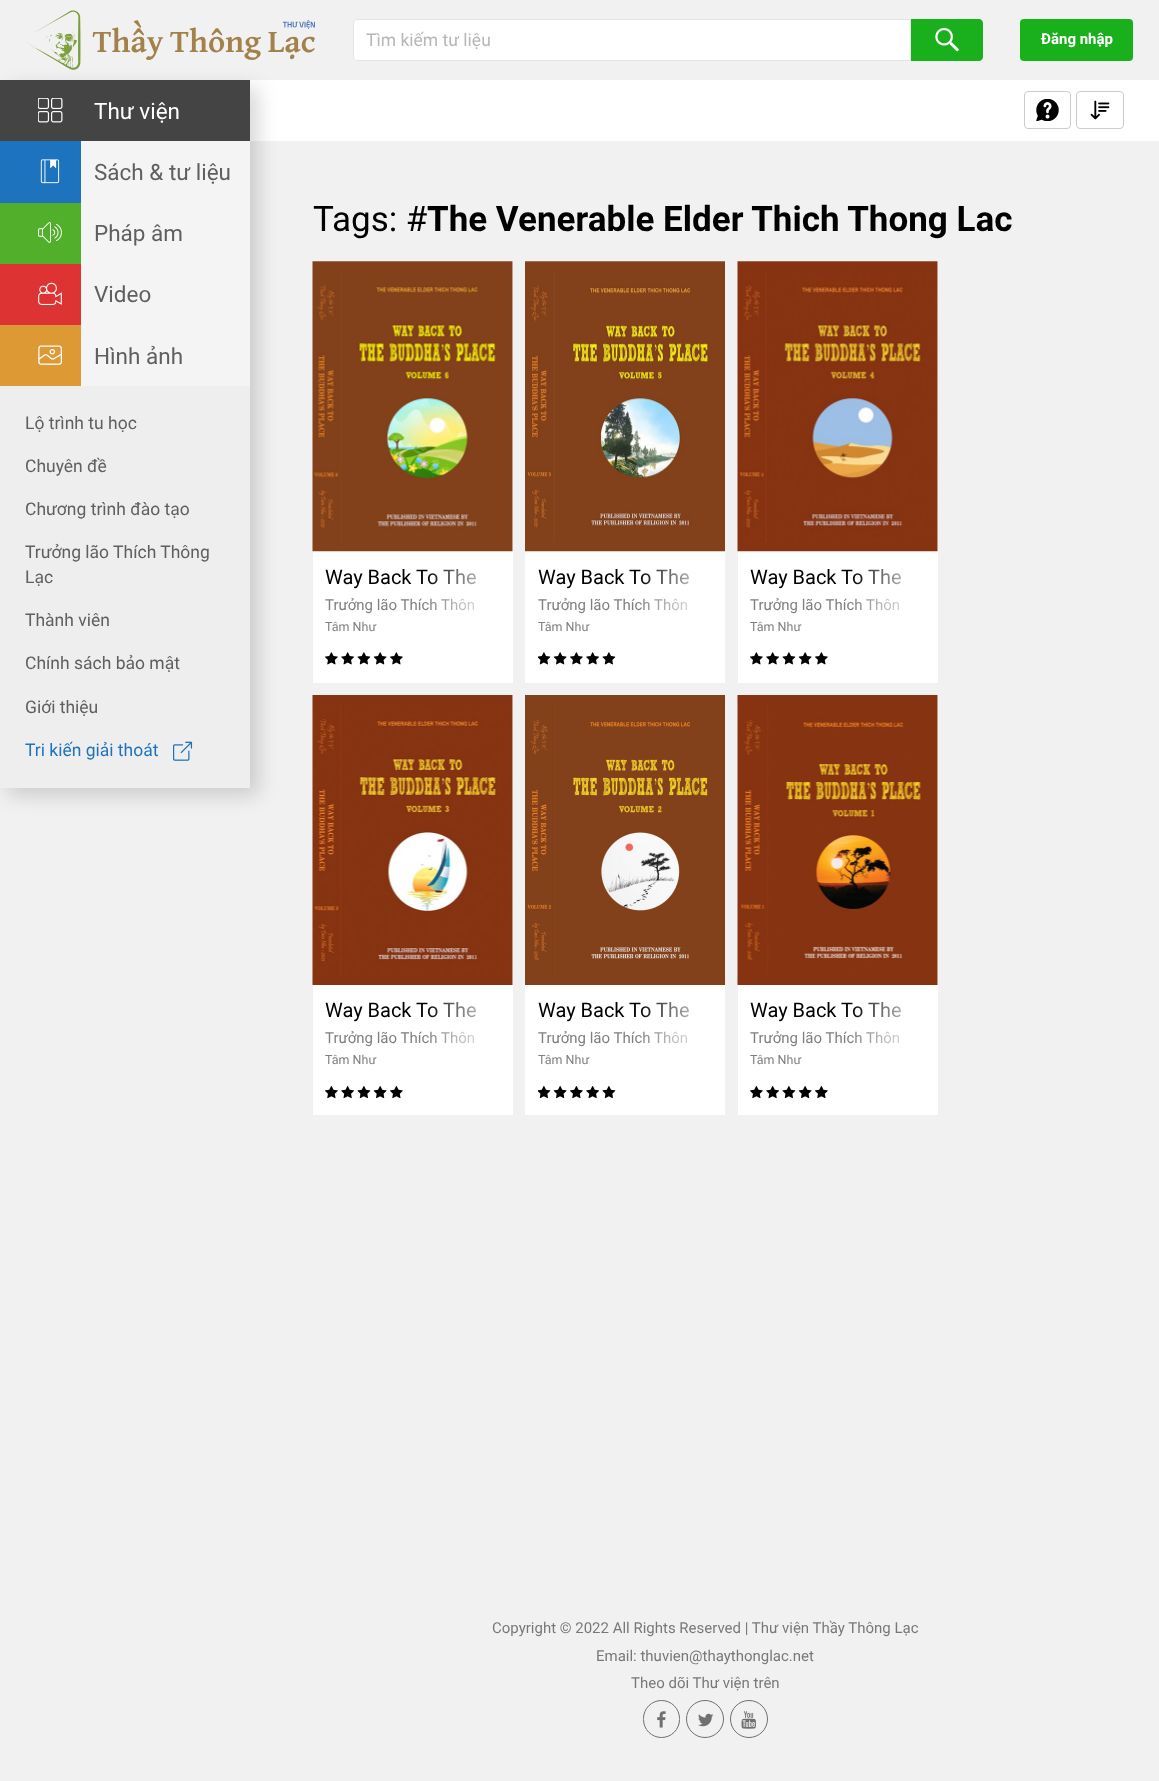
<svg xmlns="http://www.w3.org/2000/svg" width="1159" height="1781">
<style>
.a{font:17.5px Roboto;fill:#b7b7b7}
.b{font:bold 15px Roboto;fill:#fff}
.c{font:22.5px Roboto;fill:#fff}
.d{font:22.5px Roboto;fill:#5f5f5f}
.e{font:17.5px Roboto;fill:#5f5f5f}
.f{font:17.5px Roboto;fill:#1f73be}
.g{font:35px Roboto;fill:#000}
.h{font:bold 35px Roboto;fill:#000}
.i{font:20px Roboto;fill:#000}
.j{font:15px Roboto;fill:#7f7f7f}
.k{font:12.5px Roboto;fill:#7f7f7f}
.l{font:15px Roboto;fill:#787878}
</style>
<defs>
<linearGradient id="g1" gradientUnits="userSpaceOnUse" x1="425" y1="578" x2="500" y2="578"><stop offset="0" stop-color="#fff" stop-opacity="0"/><stop offset="1" stop-color="#fff"/></linearGradient>
<linearGradient id="g2" gradientUnits="userSpaceOnUse" x1="425" y1="605" x2="500" y2="605"><stop offset="0" stop-color="#fff" stop-opacity="0"/><stop offset="1" stop-color="#fff"/></linearGradient>
<linearGradient id="g3" gradientUnits="userSpaceOnUse" x1="638" y1="578" x2="713" y2="578"><stop offset="0" stop-color="#fff" stop-opacity="0"/><stop offset="1" stop-color="#fff"/></linearGradient>
<linearGradient id="g4" gradientUnits="userSpaceOnUse" x1="638" y1="605" x2="713" y2="605"><stop offset="0" stop-color="#fff" stop-opacity="0"/><stop offset="1" stop-color="#fff"/></linearGradient>
<linearGradient id="g5" gradientUnits="userSpaceOnUse" x1="850" y1="578" x2="925" y2="578"><stop offset="0" stop-color="#fff" stop-opacity="0"/><stop offset="1" stop-color="#fff"/></linearGradient>
<linearGradient id="g6" gradientUnits="userSpaceOnUse" x1="850" y1="605" x2="925" y2="605"><stop offset="0" stop-color="#fff" stop-opacity="0"/><stop offset="1" stop-color="#fff"/></linearGradient>
<linearGradient id="g7" gradientUnits="userSpaceOnUse" x1="425" y1="1011" x2="500" y2="1011"><stop offset="0" stop-color="#fff" stop-opacity="0"/><stop offset="1" stop-color="#fff"/></linearGradient>
<linearGradient id="g8" gradientUnits="userSpaceOnUse" x1="425" y1="1038" x2="500" y2="1038"><stop offset="0" stop-color="#fff" stop-opacity="0"/><stop offset="1" stop-color="#fff"/></linearGradient>
<linearGradient id="g9" gradientUnits="userSpaceOnUse" x1="638" y1="1011" x2="713" y2="1011"><stop offset="0" stop-color="#fff" stop-opacity="0"/><stop offset="1" stop-color="#fff"/></linearGradient>
<linearGradient id="g10" gradientUnits="userSpaceOnUse" x1="638" y1="1038" x2="713" y2="1038"><stop offset="0" stop-color="#fff" stop-opacity="0"/><stop offset="1" stop-color="#fff"/></linearGradient>
<linearGradient id="g11" gradientUnits="userSpaceOnUse" x1="850" y1="1011" x2="925" y2="1011"><stop offset="0" stop-color="#fff" stop-opacity="0"/><stop offset="1" stop-color="#fff"/></linearGradient>
<linearGradient id="g12" gradientUnits="userSpaceOnUse" x1="850" y1="1038" x2="925" y2="1038"><stop offset="0" stop-color="#fff" stop-opacity="0"/><stop offset="1" stop-color="#fff"/></linearGradient>
</defs>
<rect width="100%" height="100%" fill="#f1f1f1"/>
<path fill="#fff" d="M250 80h909v61H250z"/>
<path fill="#00000029" filter="blur(10px)" d="M8 88h250v707H8z"/>
<image href="1.png" x="28" y="10" width="287" height="60"/>
<path fill="#fff" stroke="#e5e5e5" d="M357 19.5h553.5v41h-553.5c-2 0-3.5-1.5-3.5-3.5v-34c0-2 1.5-3.5 3.5-3.5z"/>
<path fill="#19af1d" d="M911 19h68c2 0 4 2 4 4v34c0 2-2 4-4 4h-68z"/>
<image href="2.png" x="935" y="28" width="24" height="24"/>
<rect fill="#19af1d" x="1020" y="19" width="113" height="42" rx="4"/>
<path fill="#eee" d="M0 386h250v402H0z"/>
<path fill="#444" d="M0 80h250v61H0z"/>
<image href="3.png" x="38" y="98" width="25" height="25"/>
<path fill="#1e73be" d="M0 141h81v62H0z"/>
<image href="4.png" x="40" y="159" width="20" height="25"/>
<path fill="#f5f4f5" d="M81 141h169v245H81z"/>
<path fill="#51af2b" d="M0 203h81v61H0z"/>
<image href="5.png" x="38" y="222" width="24" height="21"/>
<path fill="#d33" d="M0 264h81v61H0z"/>
<image href="6.png" x="38" y="282" width="24" height="23"/>
<path fill="#d93" d="M0 325h81v61H0z"/>
<image href="7.png" x="38" y="345" width="24" height="20"/>
<image href="8.png" x="173" y="741" width="20" height="20"/>
<rect fill="none" stroke="#ccc" x="1024.5" y="91.5" width="46" height="37" rx="3.5"/>
<image href="9.png" x="1036" y="99" width="23" height="22"/>
<rect fill="none" stroke="#ccc" x="1076.5" y="91.5" width="47" height="37" rx="3.5"/>
<image href="10.png" x="1090" y="100" width="20" height="20"/>
<path fill="#fff" d="M313 261h200v422H313z"/>
<image href="11.png" x="312" y="261" width="201" height="291"/>
<image href="12.png" x="325" y="652" width="13" height="13"/>
<image href="13.png" x="341" y="652" width="13" height="13"/>
<image href="14.png" x="357" y="652" width="13" height="13"/>
<image href="15.png" x="374" y="652" width="13" height="13"/>
<image href="12.png" x="390" y="652" width="13" height="13"/>
<image href="16.png" x="325" y="652" width="13" height="13"/>
<image href="17.png" x="341" y="652" width="13" height="13"/>
<image href="18.png" x="357" y="652" width="14" height="13"/>
<image href="19.png" x="373" y="652" width="14" height="13"/>
<image href="16.png" x="390" y="652" width="13" height="13"/>
<path fill="#fff" d="M525 261h200v422H525z"/>
<image href="20.png" x="525" y="261" width="200" height="291"/>
<image href="21.png" x="538" y="652" width="12" height="13"/>
<image href="15.png" x="554" y="652" width="13" height="13"/>
<image href="12.png" x="570" y="652" width="13" height="13"/>
<image href="13.png" x="586" y="652" width="13" height="13"/>
<image href="14.png" x="602" y="652" width="13" height="13"/>
<image href="22.png" x="538" y="652" width="13" height="13"/>
<image href="19.png" x="553" y="652" width="14" height="13"/>
<image href="16.png" x="570" y="652" width="13" height="13"/>
<image href="17.png" x="586" y="652" width="13" height="13"/>
<image href="18.png" x="602" y="652" width="14" height="13"/>
<path fill="#fff" d="M738 261h200v422H738z"/>
<image href="23.png" x="737" y="261" width="201" height="291"/>
<image href="12.png" x="750" y="652" width="13" height="13"/>
<image href="13.png" x="766" y="652" width="13" height="13"/>
<image href="14.png" x="782" y="652" width="13" height="13"/>
<image href="15.png" x="799" y="652" width="13" height="13"/>
<image href="12.png" x="815" y="652" width="13" height="13"/>
<image href="16.png" x="750" y="652" width="13" height="13"/>
<image href="17.png" x="766" y="652" width="13" height="13"/>
<image href="18.png" x="782" y="652" width="14" height="13"/>
<image href="19.png" x="798" y="652" width="14" height="13"/>
<image href="16.png" x="815" y="652" width="13" height="13"/>
<path fill="#fff" d="M313 695h200v420H313z"/>
<image href="24.png" x="312" y="695" width="201" height="290"/>
<image href="25.png" x="325" y="1086" width="13" height="12"/>
<image href="26.png" x="341" y="1086" width="13" height="12"/>
<image href="27.png" x="357" y="1086" width="14" height="12"/>
<image href="28.png" x="374" y="1086" width="13" height="12"/>
<image href="25.png" x="390" y="1086" width="13" height="12"/>
<image href="29.png" x="325" y="1086" width="13" height="13"/>
<image href="30.png" x="341" y="1086" width="13" height="13"/>
<image href="31.png" x="357" y="1086" width="14" height="13"/>
<image href="32.png" x="373" y="1086" width="14" height="13"/>
<image href="29.png" x="390" y="1086" width="13" height="13"/>
<path fill="#fff" d="M525 985h200v130H525z"/>
<image href="33.png" x="525" y="695" width="200" height="290"/>
<image href="34.png" x="538" y="1086" width="13" height="12"/>
<image href="28.png" x="554" y="1086" width="13" height="12"/>
<image href="25.png" x="570" y="1086" width="13" height="12"/>
<image href="26.png" x="586" y="1086" width="13" height="12"/>
<image href="27.png" x="602" y="1086" width="14" height="12"/>
<image href="35.png" x="538" y="1086" width="13" height="13"/>
<image href="32.png" x="553" y="1086" width="14" height="13"/>
<image href="29.png" x="570" y="1086" width="13" height="13"/>
<image href="30.png" x="586" y="1086" width="13" height="13"/>
<image href="31.png" x="602" y="1086" width="14" height="13"/>
<path fill="#fff" d="M738 695h200v420H738z"/>
<image href="36.png" x="737" y="695" width="201" height="290"/>
<image href="25.png" x="750" y="1086" width="13" height="12"/>
<image href="26.png" x="766" y="1086" width="13" height="12"/>
<image href="27.png" x="782" y="1086" width="14" height="12"/>
<image href="28.png" x="799" y="1086" width="13" height="12"/>
<image href="25.png" x="815" y="1086" width="13" height="12"/>
<image href="29.png" x="750" y="1086" width="13" height="13"/>
<image href="30.png" x="766" y="1086" width="13" height="13"/>
<image href="31.png" x="782" y="1086" width="14" height="13"/>
<image href="32.png" x="798" y="1086" width="14" height="13"/>
<image href="29.png" x="815" y="1086" width="13" height="13"/>
<rect fill="none" stroke="#707070" x="643.5" y="1700.5" width="36" height="37" rx="18"/>
<image href="37.png" x="657" y="1711" width="9" height="17"/>
<circle fill="none" stroke="#707070" cx="705" cy="1719" r="18.5"/>
<image href="38.png" x="698" y="1713" width="16" height="14"/>
<circle fill="none" stroke="#707070" cx="749" cy="1719" r="18.5"/>
<image href="39.png" x="741" y="1711" width="15" height="18"/>
<text class="a" x="366" y="46">Tìm kiếm tư liệu</text>
<text class="b" x="1041" y="44">Đăng nhập</text>
<text class="c" x="94" y="119">Thư viện</text>
<text class="d" x="94" y="180">Sách &amp; tư liệu</text>
<text class="d" x="94" y="241">Pháp âm</text>
<text class="d" x="94" y="302">Video</text>
<text class="d" x="94" y="364">Hình ảnh</text>
<text class="e" x="25" y="429">Lộ trình tu học</text>
<text class="e" x="25" y="472">Chuyên đề</text>
<text class="e" x="25" y="515">Chương trình đào tạo</text>
<text class="e" x="25" y="558">Trưởng lão Thích Thông</text>
<text class="e" x="25" y="583">Lạc</text>
<text class="e" x="25" y="626">Thành viên</text>
<text class="e" x="25" y="669">Chính sách bảo mật</text>
<text class="e" x="25" y="713">Giới thiệu</text>
<text class="f" x="25" y="756">Tri kiến giải thoát</text>
<text class="g" x="313" y="231">Tags: #</text>
<text class="h" x="427" y="231">The Venerable Elder Thich Thong Lac</text>
<text class="i" x="325" y="584">Way Back To The</text>
<path fill="url(#g1)" d="M427 569h49v16H427z"/>
<text class="j" x="325" y="610">Trưởng lão Thích Thôn</text>
<path fill="url(#g2)" d="M427 598h47v13H427z"/>
<text class="k" x="325" y="631">Tâm Như</text>
<text class="i" x="538" y="584">Way Back To The</text>
<path fill="url(#g3)" d="M640 569h49v16H640z"/>
<text class="j" x="538" y="610">Trưởng lão Thích Thôn</text>
<path fill="url(#g4)" d="M640 598h47v13H640z"/>
<text class="k" x="538" y="631">Tâm Như</text>
<text class="i" x="750" y="584">Way Back To The</text>
<path fill="url(#g5)" d="M852 569h49v16H852z"/>
<text class="j" x="750" y="610">Trưởng lão Thích Thôn</text>
<path fill="url(#g6)" d="M852 598h47v13H852z"/>
<text class="k" x="750" y="631">Tâm Như</text>
<text class="i" x="325" y="1017">Way Back To The</text>
<path fill="url(#g7)" d="M427 1002h49v16H427z"/>
<text class="j" x="325" y="1043">Trưởng lão Thích Thôn</text>
<path fill="url(#g8)" d="M427 1031h47v13H427z"/>
<text class="k" x="325" y="1064">Tâm Như</text>
<text class="i" x="538" y="1017">Way Back To The</text>
<path fill="url(#g9)" d="M640 1002h49v16H640z"/>
<text class="j" x="538" y="1043">Trưởng lão Thích Thôn</text>
<path fill="url(#g10)" d="M640 1031h47v13H640z"/>
<text class="k" x="538" y="1064">Tâm Như</text>
<text class="i" x="750" y="1017">Way Back To The</text>
<path fill="url(#g11)" d="M852 1002h49v16H852z"/>
<text class="j" x="750" y="1043">Trưởng lão Thích Thôn</text>
<path fill="url(#g12)" d="M852 1031h47v13H852z"/>
<text class="k" x="750" y="1064">Tâm Như</text>
<text class="l" x="492" y="1633">Copyright © 2022 All Rights Reserved | Thư viện Thầy Thông Lạc</text>
<text class="l" x="596" y="1661">Email: thuvien@thaythonglac.net</text>
<text class="l" x="631" y="1688">Theo dõi Thư viện trên</text>
</svg>
